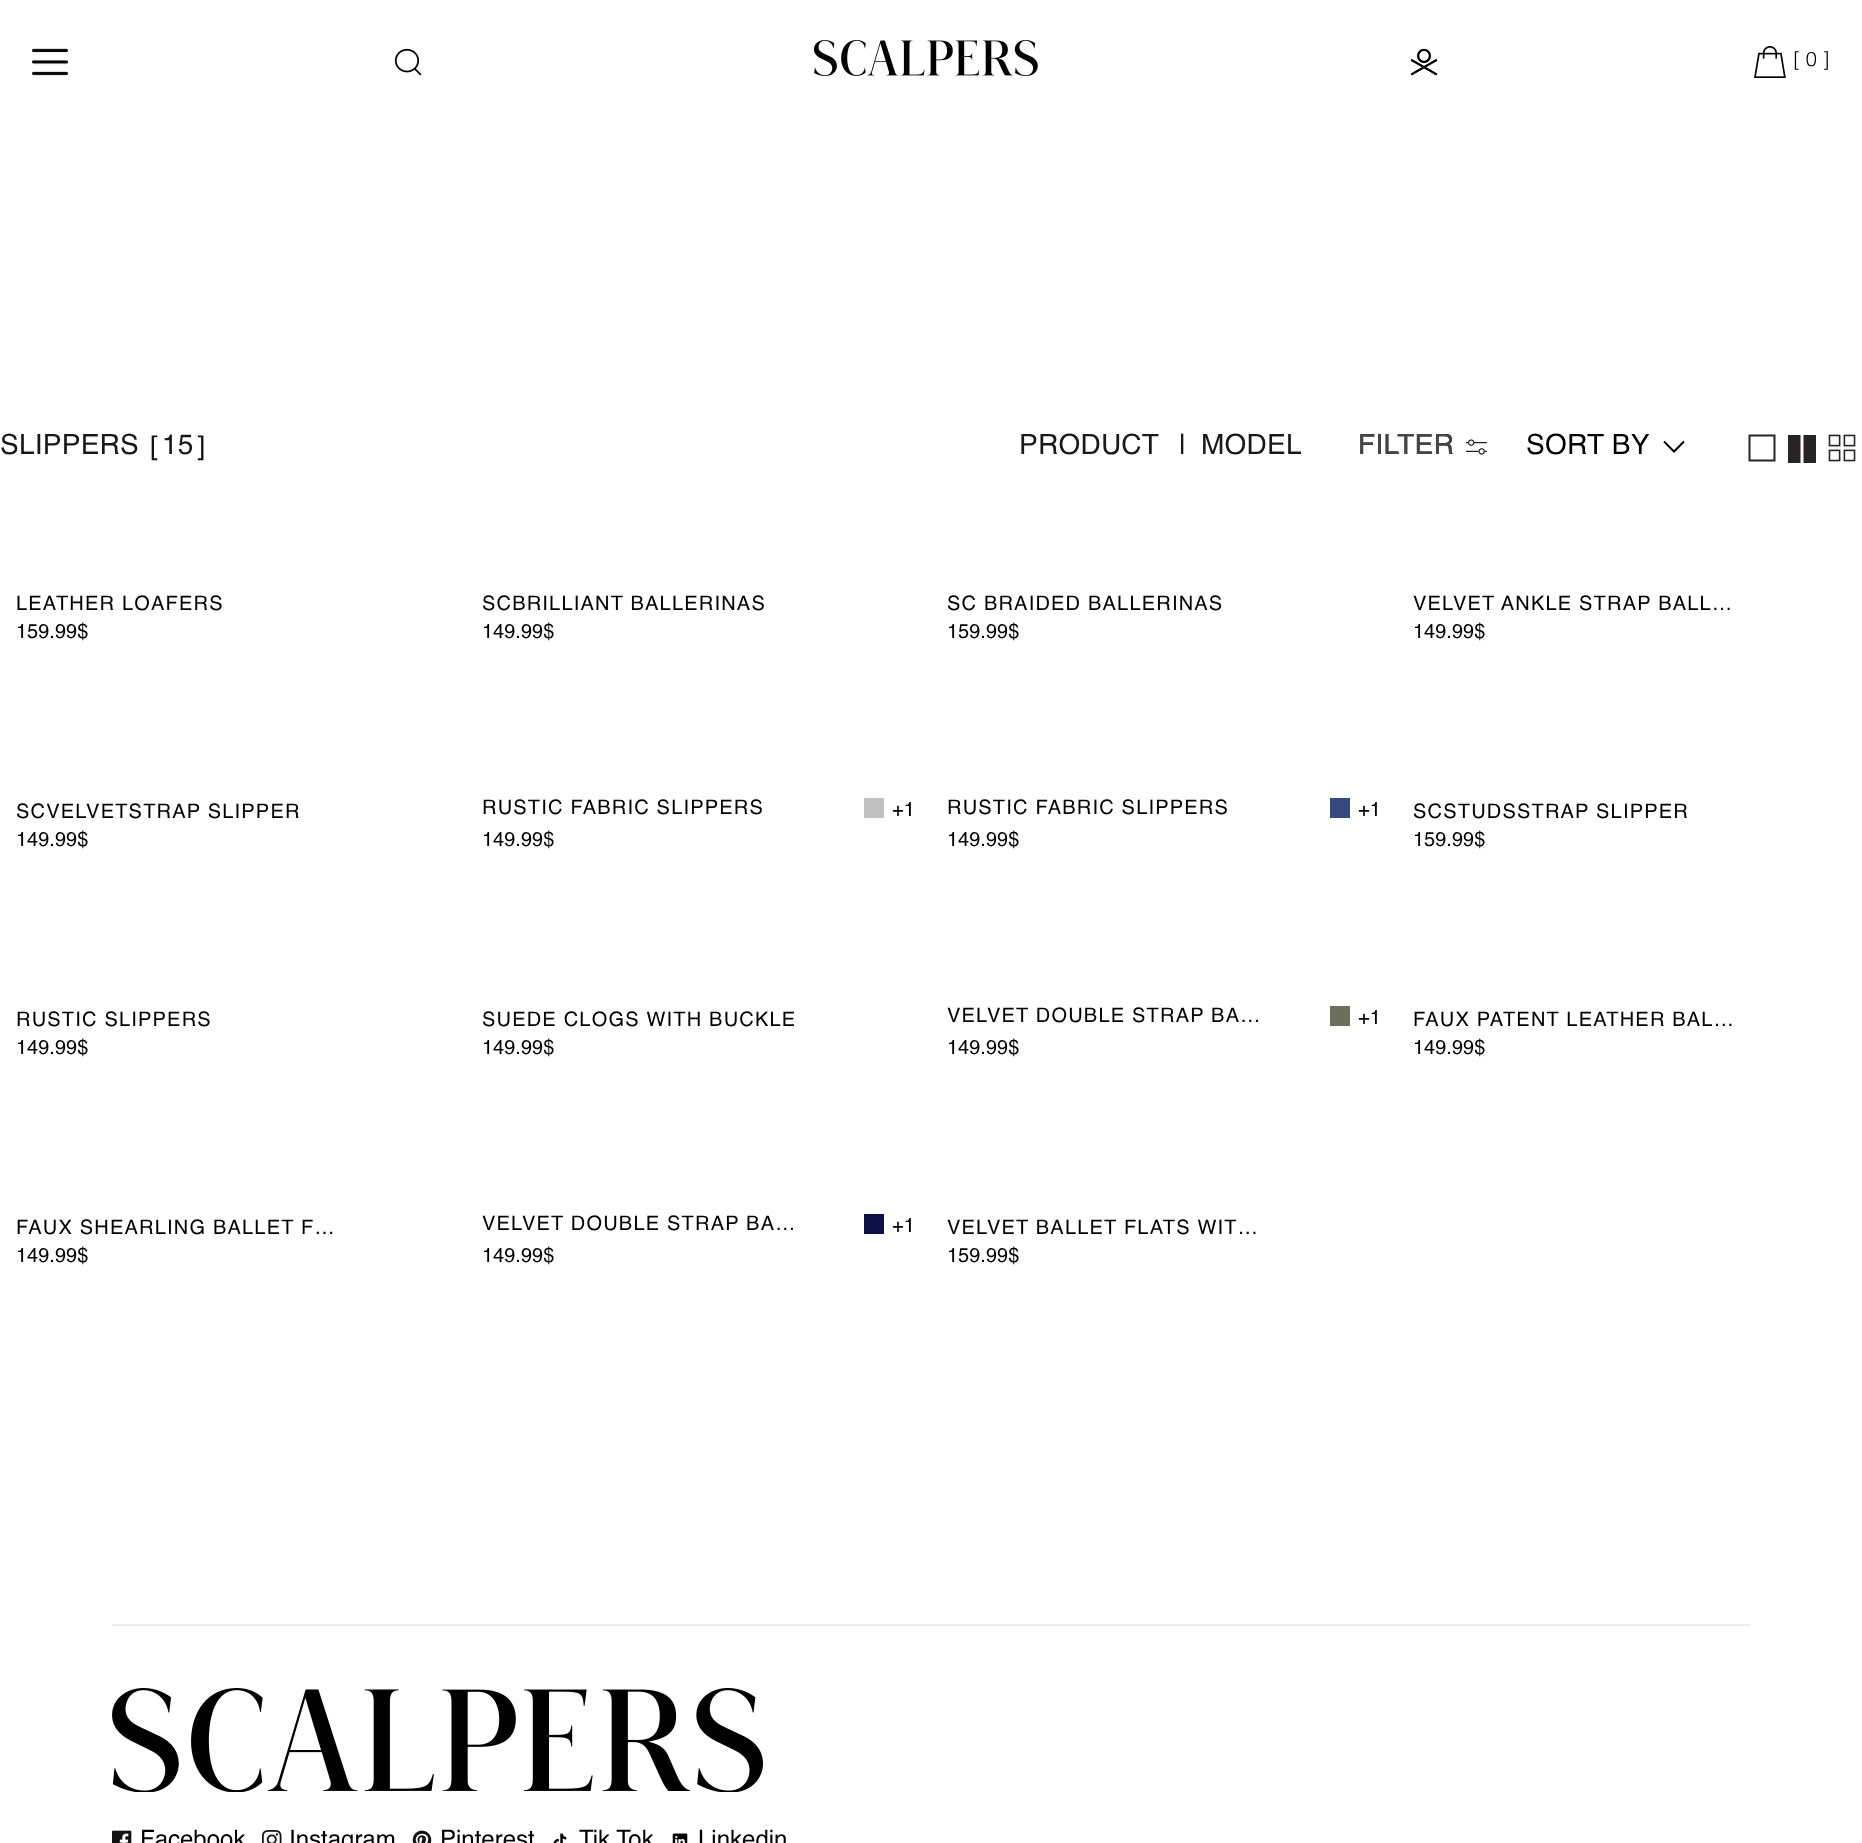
<svg xmlns="http://www.w3.org/2000/svg" width="1862" height="1843">
<style>
.a{font:300 20px Helvetica;letter-spacing:0.25px;fill:#000}
.b{font:28px Helvetica;letter-spacing:0.25px;fill:#191919}
.c{font:bold 28px Assistant;fill:#121212}
.d{font:28px Helvetica;letter-spacing:0.25px;fill:#000}
.e{font:28px Helvetica;letter-spacing:0.25px;fill:#444}
.f{font:20px Helvetica;letter-spacing:1.2px;fill:#000}
.g{font:20px Helvetica;fill:#000}
.h{font:24px Helvetica;fill:#000}
</style>
<rect width="100%" height="100%" fill="#fff"/>
<image href="1.png" x="32" y="48" width="36" height="28"/>
<image href="2.png" x="394" y="48" width="28" height="28"/>
<image href="3.png" x="813" y="40" width="225" height="36"/>
<image href="4.png" x="1410" y="48" width="28" height="28"/>
<image href="5.png" x="1754" y="46" width="32" height="32"/>
<image href="6.png" x="1465" y="439" width="22" height="16"/>
<path fill="none" stroke="#000" stroke-width="2" d="M1664 441.5l10 10l10-10"/>
<path fill="#262424" fill-rule="evenodd" d="M1773.5 436.5h-23v23h23zm-25-2v27h27v-27z"/>
<path fill="#262424" fill-rule="evenodd" d="M1788 435h12.5v28h-12.5zm15.5 0h12.5v28h-12.5z"/>
<image href="7.png" x="1828" y="434" width="28" height="28"/>
<path fill="#c0c0c0" d="M864 798h20v20H864z"/>
<path fill="#354a7c" d="M1330 798h20v20H1330z"/>
<path fill="#6c6f5e" d="M1330 1006h20v20H1330z"/>
<path fill="#101049" d="M864 1214h20v20H864z"/>
<path fill="#ececec" d="M112 1624h1638v2H112z"/>
<image href="8.png" x="112" y="1688" width="652" height="104"/>
<image href="9.png" x="112" y="1830" width="20" height="13"/>
<image href="10.png" x="262" y="1830" width="20" height="13"/>
<image href="11.png" x="412" y="1830" width="20" height="13"/>
<image href="12.png" x="553" y="1833" width="14" height="10"/>
<image href="13.png" x="672" y="1833" width="16" height="10"/>
<text class="a" x="1793" y="66">[ 0 ]</text>
<text class="b" x="0" y="454">SLIPPERS</text>
<text class="c" x="149" y="456">[</text>
<text class="b" x="162" y="454">15</text>
<text class="c" x="197" y="456">]</text>
<text class="b" x="1019" y="454">PRODUCT</text>
<text class="b" x="1179" y="454">|</text>
<text class="b" x="1201" y="454">MODEL</text>
<text class="d" x="1358" y="454">FILTER</text>
<text class="e" x="1358" y="454">FILTER</text>
<text class="d" x="1526" y="454">SORT BY</text>
<text class="f" x="16" y="610">LEATHER LOAFERS</text>
<text class="g" x="16" y="638">159.99$</text>
<text class="f" x="482" y="610">SCBRILLIANT BALLERINAS</text>
<text class="g" x="482" y="638">149.99$</text>
<text class="f" x="947" y="610">SC BRAIDED BALLERINAS</text>
<text class="g" x="947" y="638">159.99$</text>
<text class="f" x="1413" y="610">VELVET ANKLE STRAP BALL…</text>
<text class="g" x="1413" y="638">149.99$</text>
<text class="f" x="16" y="818">SCVELVETSTRAP SLIPPER</text>
<text class="g" x="16" y="846">149.99$</text>
<text class="f" x="482" y="814">RUSTIC FABRIC SLIPPERS</text>
<text class="g" x="892" y="816">+1</text>
<text class="g" x="482" y="846">149.99$</text>
<text class="f" x="947" y="814">RUSTIC FABRIC SLIPPERS</text>
<text class="g" x="1358" y="816">+1</text>
<text class="g" x="947" y="846">149.99$</text>
<text class="f" x="1413" y="818">SCSTUDSSTRAP SLIPPER</text>
<text class="g" x="1413" y="846">159.99$</text>
<text class="f" x="16" y="1026">RUSTIC SLIPPERS</text>
<text class="g" x="16" y="1054">149.99$</text>
<text class="f" x="482" y="1026">SUEDE CLOGS WITH BUCKLE</text>
<text class="g" x="482" y="1054">149.99$</text>
<text class="f" x="947" y="1022">VELVET DOUBLE STRAP BA…</text>
<text class="g" x="1358" y="1024">+1</text>
<text class="g" x="947" y="1054">149.99$</text>
<text class="f" x="1413" y="1026">FAUX PATENT LEATHER BAL…</text>
<text class="g" x="1413" y="1054">149.99$</text>
<text class="f" x="16" y="1234">FAUX SHEARLING BALLET F…</text>
<text class="g" x="16" y="1262">149.99$</text>
<text class="f" x="482" y="1230">VELVET DOUBLE STRAP BA…</text>
<text class="g" x="892" y="1232">+1</text>
<text class="g" x="482" y="1262">149.99$</text>
<text class="f" x="947" y="1234">VELVET BALLET FLATS WIT…</text>
<text class="g" x="947" y="1262">159.99$</text>
<text class="h" x="140" y="1847">Facebook</text>
<text class="h" x="289" y="1847">Instagram</text>
<text class="h" x="440" y="1847">Pinterest</text>
<text class="h" x="579" y="1847">Tik Tok</text>
<text class="h" x="698" y="1847">Linkedin</text>
</svg>
